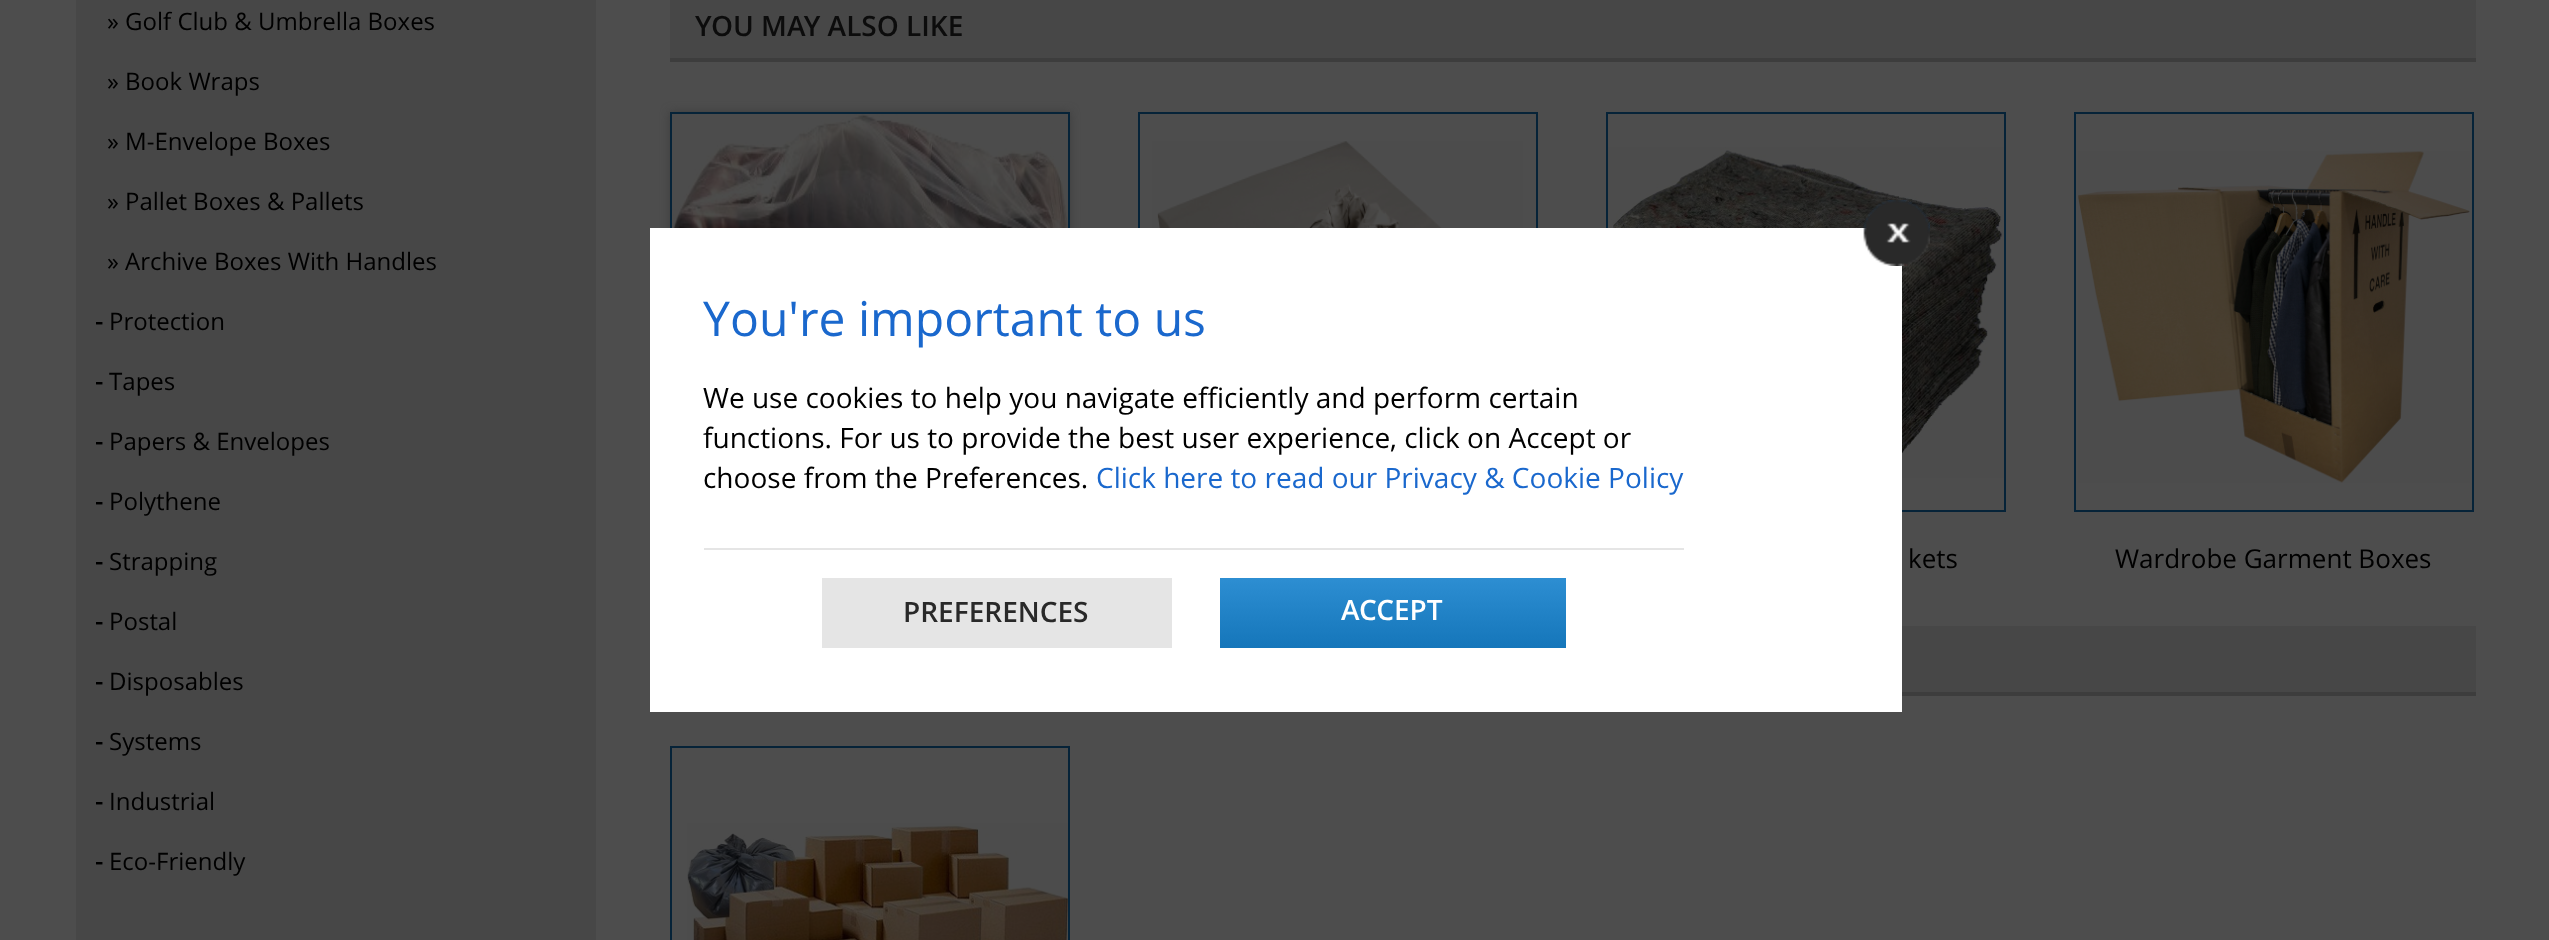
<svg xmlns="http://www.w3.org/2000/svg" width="2549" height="940">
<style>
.a{font:24px Open Sans;fill:#000}
.b{font:bold 24px Open Sans;fill:#000}
.c{font:600 28px Open Sans;fill:#0c0c0c}
.d{font:26px Open Sans;fill:#000}
.e{font:48px Open Sans;fill:#1a68cd}
.f{font:28px Open Sans;fill:#000}
.g{font:28px Open Sans;fill:#1a68cd}
.h{font:600 28px Open Sans;fill:#292929}
.i{font:600 28px Open Sans;fill:#fff}
</style>
<defs>
<linearGradient id="g1" gradientUnits="userSpaceOnUse" x1="1393" y1="578" x2="1393" y2="648"><stop offset="0" stop-color="#2d8ed2"/><stop offset="1" stop-color="#1576ba"/></linearGradient>
</defs>
<rect width="100%" height="100%" fill="#4d4d4d"/>
<path fill="#474747" d="M76 0h520v940H76z"/>
<path fill="#474747" d="M670 0h1806v58H670z"/>
<path fill="#3d3d3d" d="M670 58h1806v4H670z"/>
<path fill="#3d3d3d" filter="blur(5px)" d="M670 112h400v400H670z"/>
<path fill="none" stroke="#062338" stroke-width="2" d="M671 113h398v398H671z"/>
<image href="1.png" x="672" y="114" width="396" height="114"/>
<path fill="none" stroke="#062338" stroke-width="2" d="M1139 113h398v398H1139z"/>
<image href="2.png" x="1152" y="141" width="371" height="87"/>
<path fill="none" stroke="#062338" stroke-width="2" d="M1607 113h398v398H1607z"/>
<image href="3.png" x="1608" y="147" width="396" height="331"/>
<path fill="none" stroke="#062338" stroke-width="2" d="M2075 113h398v398H2075z"/>
<image href="4.png" x="2078" y="151" width="392" height="332"/>
<path fill="#474747" d="M1902 626h574v66H1902z"/>
<path fill="#3d3d3d" d="M1902 692h574v4H1902z"/>
<path fill="none" stroke="#062338" stroke-width="2" d="M671 747h398v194H671z"/>
<image href="5.png" x="687" y="823" width="381" height="117"/>
<path fill="#fff" d="M650 228h1252v484H650z"/>
<image href="6.png" x="1863" y="200" width="67" height="66"/>
<path fill="#e5e5e5" d="M704 548h980v2H704z"/>
<path fill="#e5e5e5" d="M822 578h350v70H822z"/>
<path fill="url(#g1)" d="M1220 578h346v70H1220z"/>
<text class="a" x="107" y="30">»</text>
<text class="a" x="125" y="30">Golf Club &amp; Umbrella Boxes</text>
<text class="a" x="107" y="90">»</text>
<text class="a" x="125" y="90">Book Wraps</text>
<text class="a" x="107" y="150">»</text>
<text class="a" x="125" y="150">M-Envelope Boxes</text>
<text class="a" x="107" y="210">»</text>
<text class="a" x="125" y="210">Pallet Boxes &amp; Pallets</text>
<text class="a" x="107" y="270">»</text>
<text class="a" x="125" y="270">Archive Boxes With Handles</text>
<text class="b" x="95" y="330">-</text>
<text class="a" x="109" y="330">Protection</text>
<text class="b" x="95" y="390">-</text>
<text class="a" x="109" y="390">Tapes</text>
<text class="b" x="95" y="450">-</text>
<text class="a" x="109" y="450">Papers &amp; Envelopes</text>
<text class="b" x="95" y="510">-</text>
<text class="a" x="109" y="510">Polythene</text>
<text class="b" x="95" y="570">-</text>
<text class="a" x="109" y="570">Strapping</text>
<text class="b" x="95" y="630">-</text>
<text class="a" x="109" y="630">Postal</text>
<text class="b" x="95" y="690">-</text>
<text class="a" x="109" y="690">Disposables</text>
<text class="b" x="95" y="750">-</text>
<text class="a" x="109" y="750">Systems</text>
<text class="b" x="95" y="810">-</text>
<text class="a" x="109" y="810">Industrial</text>
<text class="b" x="95" y="870">-</text>
<text class="a" x="109" y="870">Eco-Friendly</text>
<text class="c" x="695" y="36">YOU MAY ALSO LIKE</text>
<text class="d" x="1908" y="568">kets</text>
<text class="d" x="2115" y="568">Wardrobe Garment Boxes</text>
<text class="e" x="703" y="336">You're important to us</text>
<text class="f" x="703" y="408">We use cookies to help you navigate efficiently and perform certain</text>
<text class="f" x="703" y="448">functions. For us to provide the best user experience, click on Accept or</text>
<text class="f" x="703" y="488">choose from the Preferences.</text>
<text class="g" x="1096" y="488">Click here to read our Privacy &amp; Cookie Policy</text>
<text class="h" x="903" y="622">PREFERENCES</text>
<text class="i" x="1341" y="620">ACCEPT</text>
</svg>
